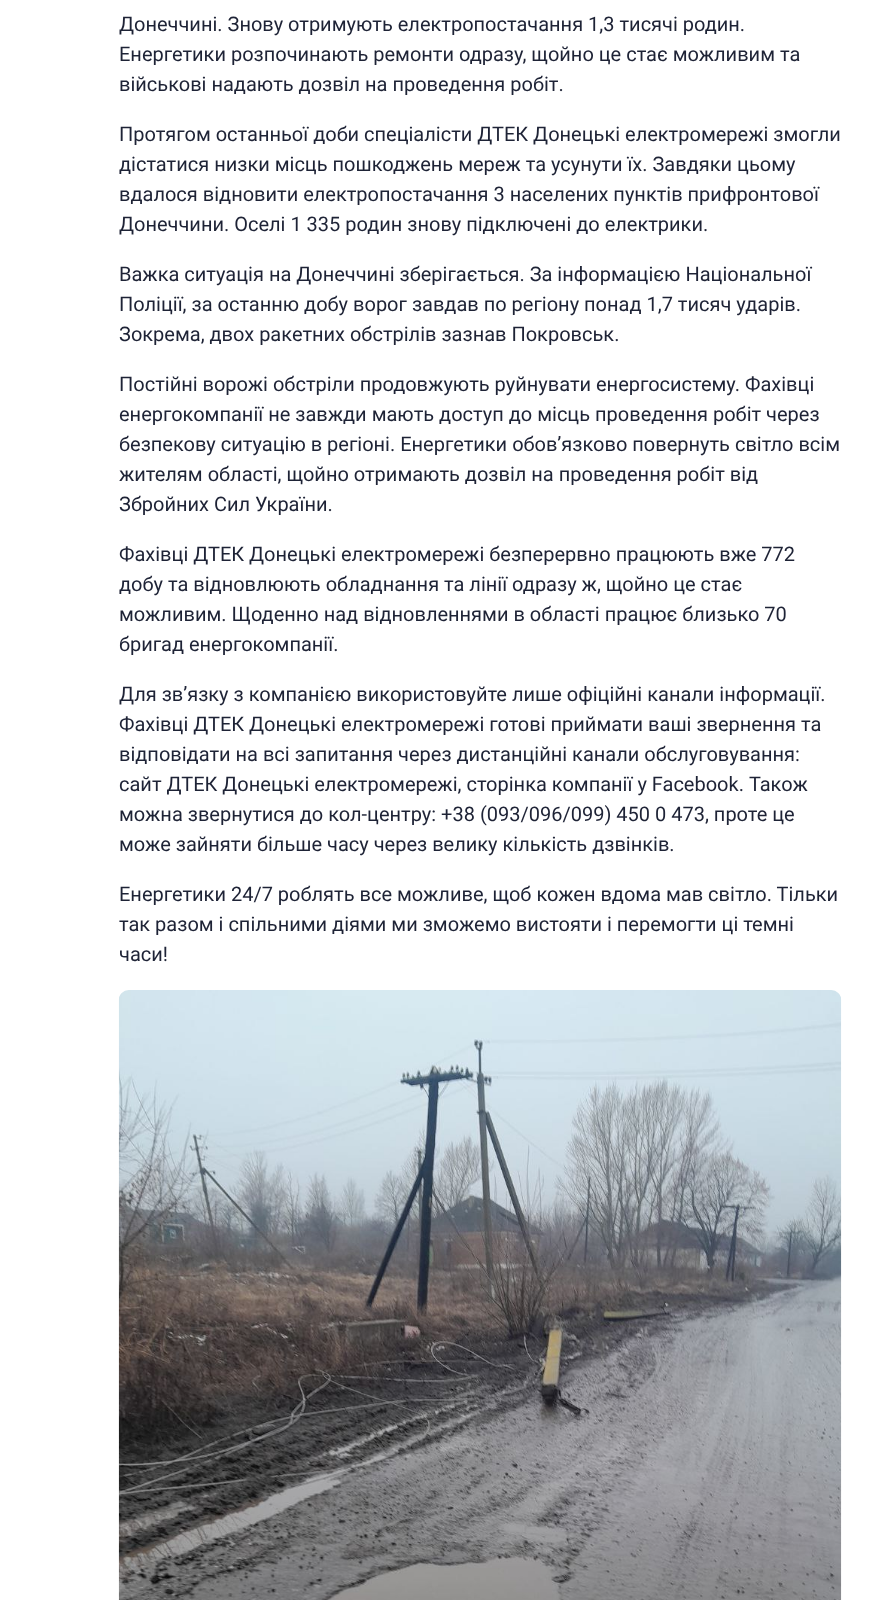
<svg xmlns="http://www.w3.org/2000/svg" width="880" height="1600">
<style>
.a{font:20px Roboto;fill:#1e2336}
</style>
<rect width="100%" height="100%" fill="#fff"/>
<image href="1.png" x="118" y="990" width="724" height="610"/>
<text class="a" x="119" y="31">Донеччині. Знову отримують електропостачання 1,3 тисячі родин.</text>
<text class="a" x="119" y="61">Енергетики розпочинають ремонти одразу, щойно це стає можливим та</text>
<text class="a" x="119" y="91">військові надають дозвіл на проведення робіт.</text>
<text class="a" x="119" y="141">Протягом останньої доби спеціалісти ДТЕК Донецькі електромережі змогли</text>
<text class="a" x="119" y="171">дістатися низки місць пошкоджень мереж та усунути їх. Завдяки цьому</text>
<text class="a" x="119" y="201">вдалося відновити електропостачання 3 населених пунктів прифронтової</text>
<text class="a" x="119" y="231">Донеччини. Оселі 1 335 родин знову підключені до електрики.</text>
<text class="a" x="119" y="281">Важка ситуація на Донеччині зберігається. За інформацією Національної</text>
<text class="a" x="119" y="311">Поліції, за останню добу ворог завдав по регіону понад 1,7 тисяч ударів.</text>
<text class="a" x="119" y="341">Зокрема, двох ракетних обстрілів зазнав Покровськ.</text>
<text class="a" x="119" y="391">Постійні ворожі обстріли продовжують руйнувати енергосистему. Фахівці</text>
<text class="a" x="119" y="421">енергокомпанії не завжди мають доступ до місць проведення робіт через</text>
<text class="a" x="119" y="451">безпекову ситуацію в регіоні. Енергетики обов’язково повернуть світло всім</text>
<text class="a" x="119" y="481">жителям області, щойно отримають дозвіл на проведення робіт від</text>
<text class="a" x="119" y="511">Збройних Сил України.</text>
<text class="a" x="119" y="561">Фахівці ДТЕК Донецькі електромережі безперервно працюють вже 772</text>
<text class="a" x="119" y="591">добу та відновлюють обладнання та лінії одразу ж, щойно це стає</text>
<text class="a" x="119" y="621">можливим. Щоденно над відновленнями в області працює близько 70</text>
<text class="a" x="119" y="651">бригад енергокомпанії.</text>
<text class="a" x="119" y="701">Для зв’язку з компанією використовуйте лише офіційні канали інформації.</text>
<text class="a" x="119" y="731">Фахівці ДТЕК Донецькі електромережі готові приймати ваші звернення та</text>
<text class="a" x="119" y="761">відповідати на всі запитання через дистанційні канали обслуговування:</text>
<text class="a" x="119" y="791">сайт ДТЕК Донецькі електромережі, сторінка компанії у Facebook. Також</text>
<text class="a" x="119" y="821">можна звернутися до кол-центру: +38 (093/096/099) 450 0 473, проте це</text>
<text class="a" x="119" y="851">може зайняти більше часу через велику кількість дзвінків.</text>
<text class="a" x="119" y="901">Енергетики 24/7 роблять все можливе, щоб кожен вдома мав світло. Тільки</text>
<text class="a" x="119" y="931">так разом і спільними діями ми зможемо вистояти і перемогти ці темні</text>
<text class="a" x="119" y="961">часи!</text>
</svg>
